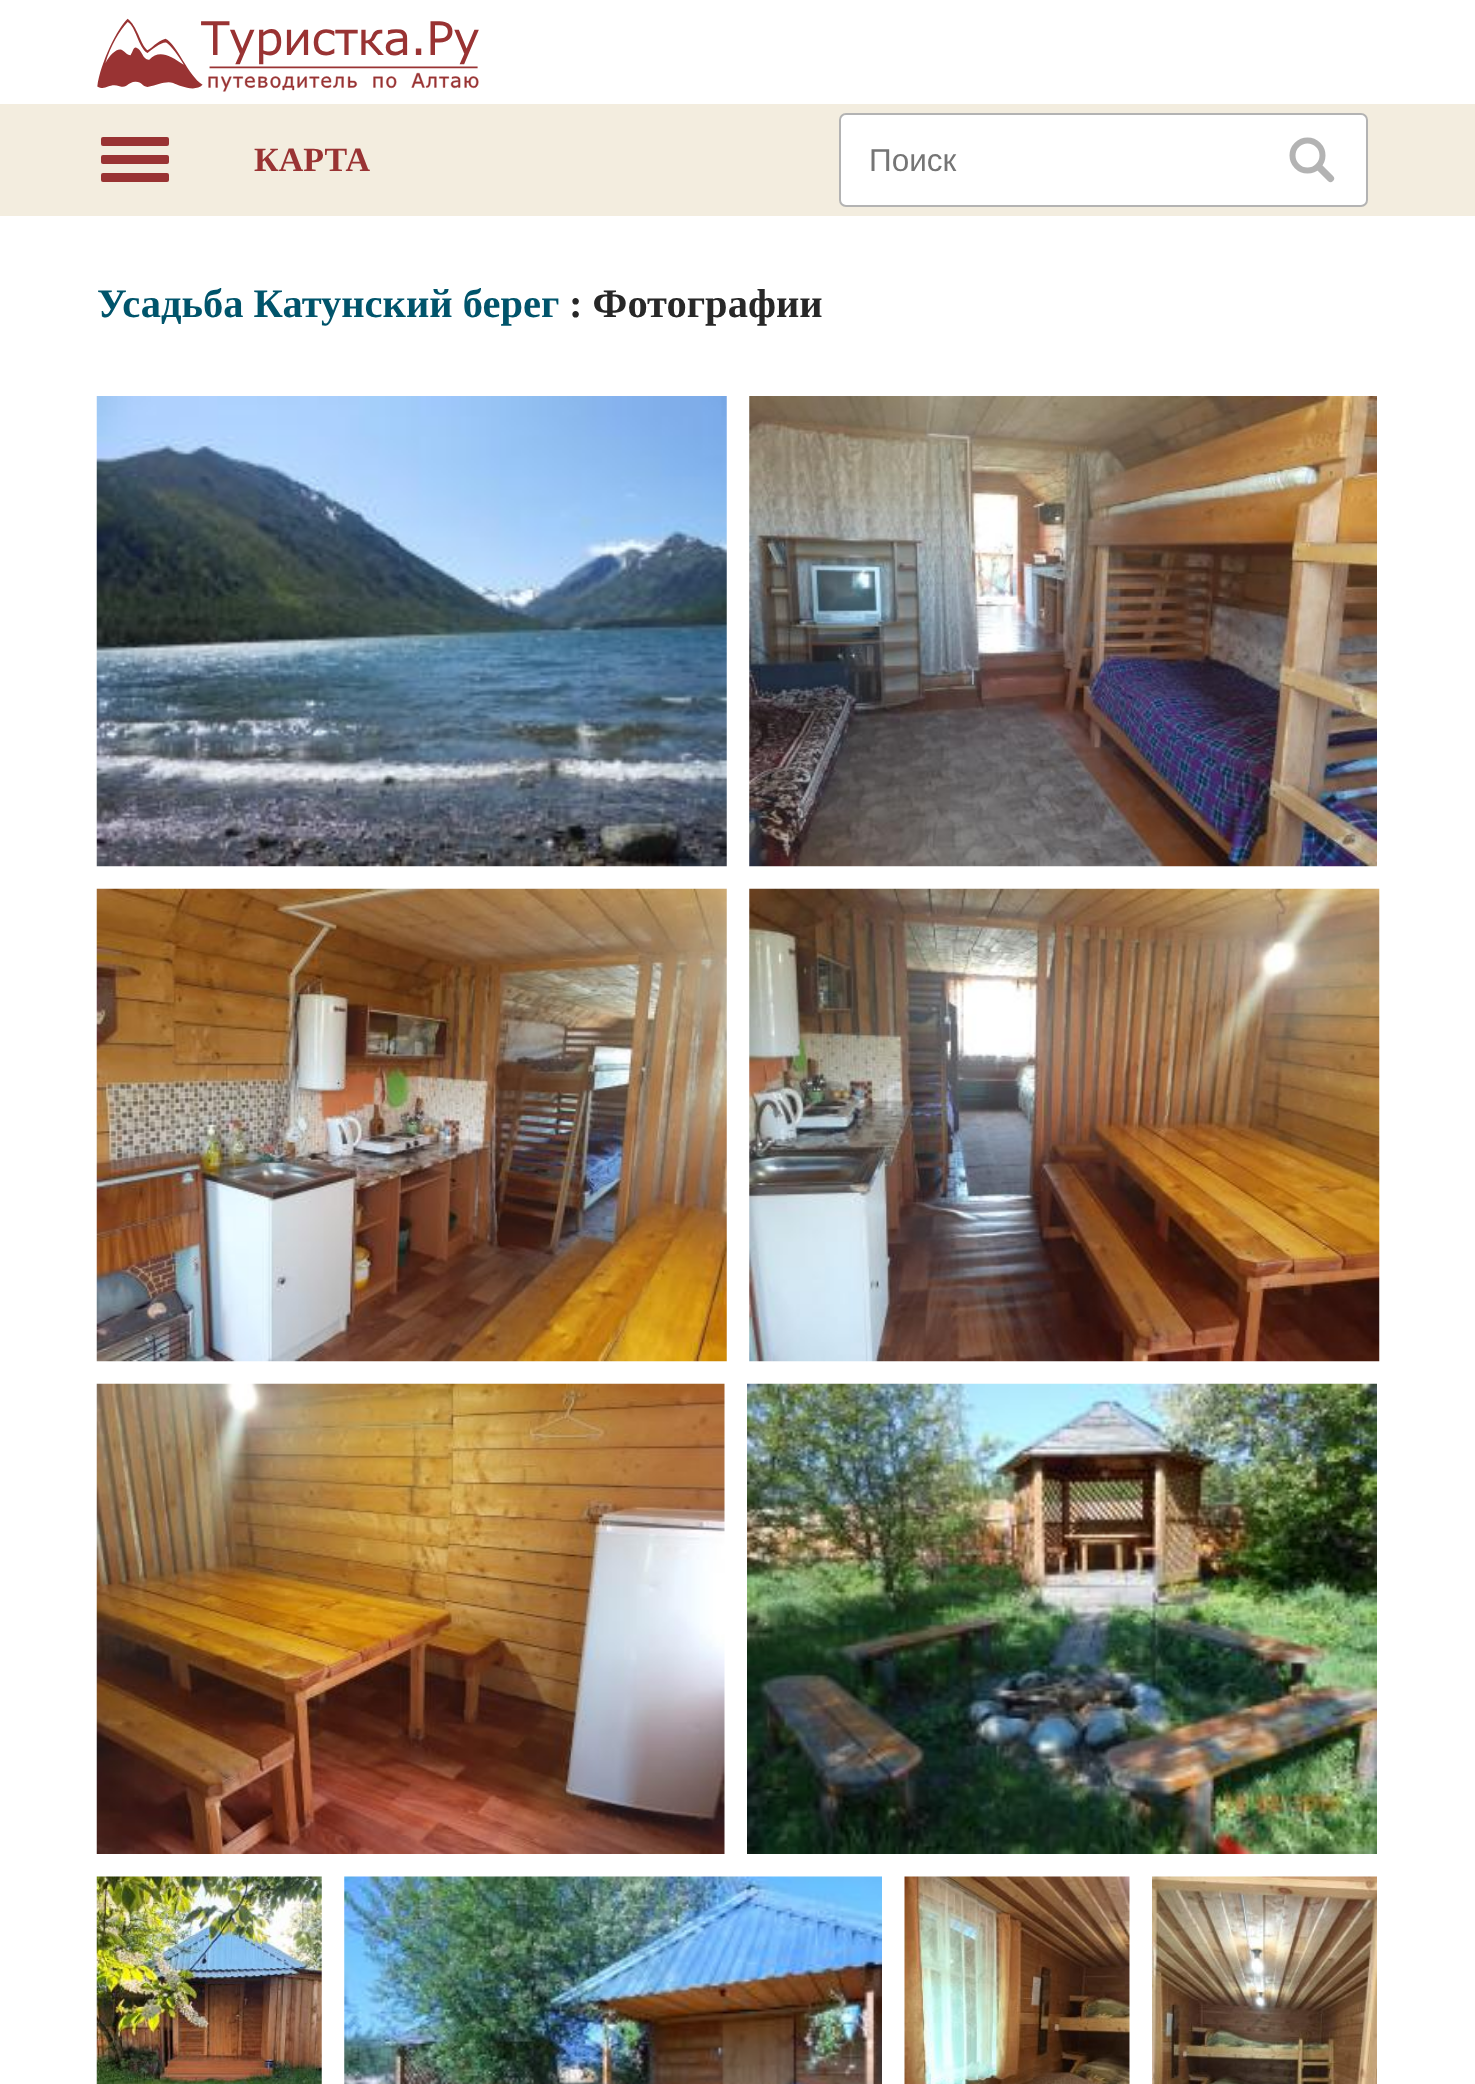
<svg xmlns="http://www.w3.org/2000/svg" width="1475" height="2084">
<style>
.a{font:bold 34px Liberation Serif;fill:#933}
.b{font:31.5px Liberation Sans;fill:#757575}
.c{font:bold 40.5px Liberation Serif;fill:#00546b}
.d{font:bold 40.5px Liberation Serif;fill:#272727}
</style>
<rect width="100%" height="100%" fill="#fff"/>
<image href="1.png" x="97" y="18" width="382" height="74"/>
<path fill="#f3eddf" d="M0 104h1475v112H0z"/>
<rect fill="#933" x="101" y="137" width="68" height="9" rx="2"/>
<rect fill="#933" x="101" y="155" width="68" height="9" rx="2"/>
<rect fill="#933" x="101" y="173" width="68" height="9" rx="2"/>
<rect fill="#fff" stroke="#b3b3b3" stroke-width="2" x="840" y="114" width="527" height="92" rx="6"/>
<circle fill="none" stroke="#b3b3b3" stroke-width="6" cx="1307.5" cy="155.5" r="15"/>
<path fill="none" stroke="#b3b3b3" stroke-width="7.2" stroke-linecap="round" stroke-linejoin="round" d="M1330.5 178.5l-11.5-11.5"/>
<image href="2.png" x="96" y="396" width="631" height="471"/>
<image href="3.png" x="749" y="396" width="628" height="471"/>
<image href="4.png" x="96" y="888" width="631" height="474"/>
<image href="5.png" x="749" y="888" width="631" height="474"/>
<image href="6.png" x="96" y="1383" width="629" height="471"/>
<image href="7.png" x="747" y="1383" width="630" height="471"/>
<image href="8.png" x="96" y="1876" width="226" height="208"/>
<image href="9.png" x="344" y="1876" width="538" height="208"/>
<image href="10.png" x="904" y="1876" width="226" height="208"/>
<image href="11.png" x="1152" y="1876" width="225" height="208"/>
<text class="a" x="254" y="171">КАРТА</text>
<text class="b" x="869" y="171">Поиск</text>
<text class="c" x="97" y="317">Усадьба Катунский берег</text>
<text class="d" x="569" y="317">: Фотографии</text>
</svg>
